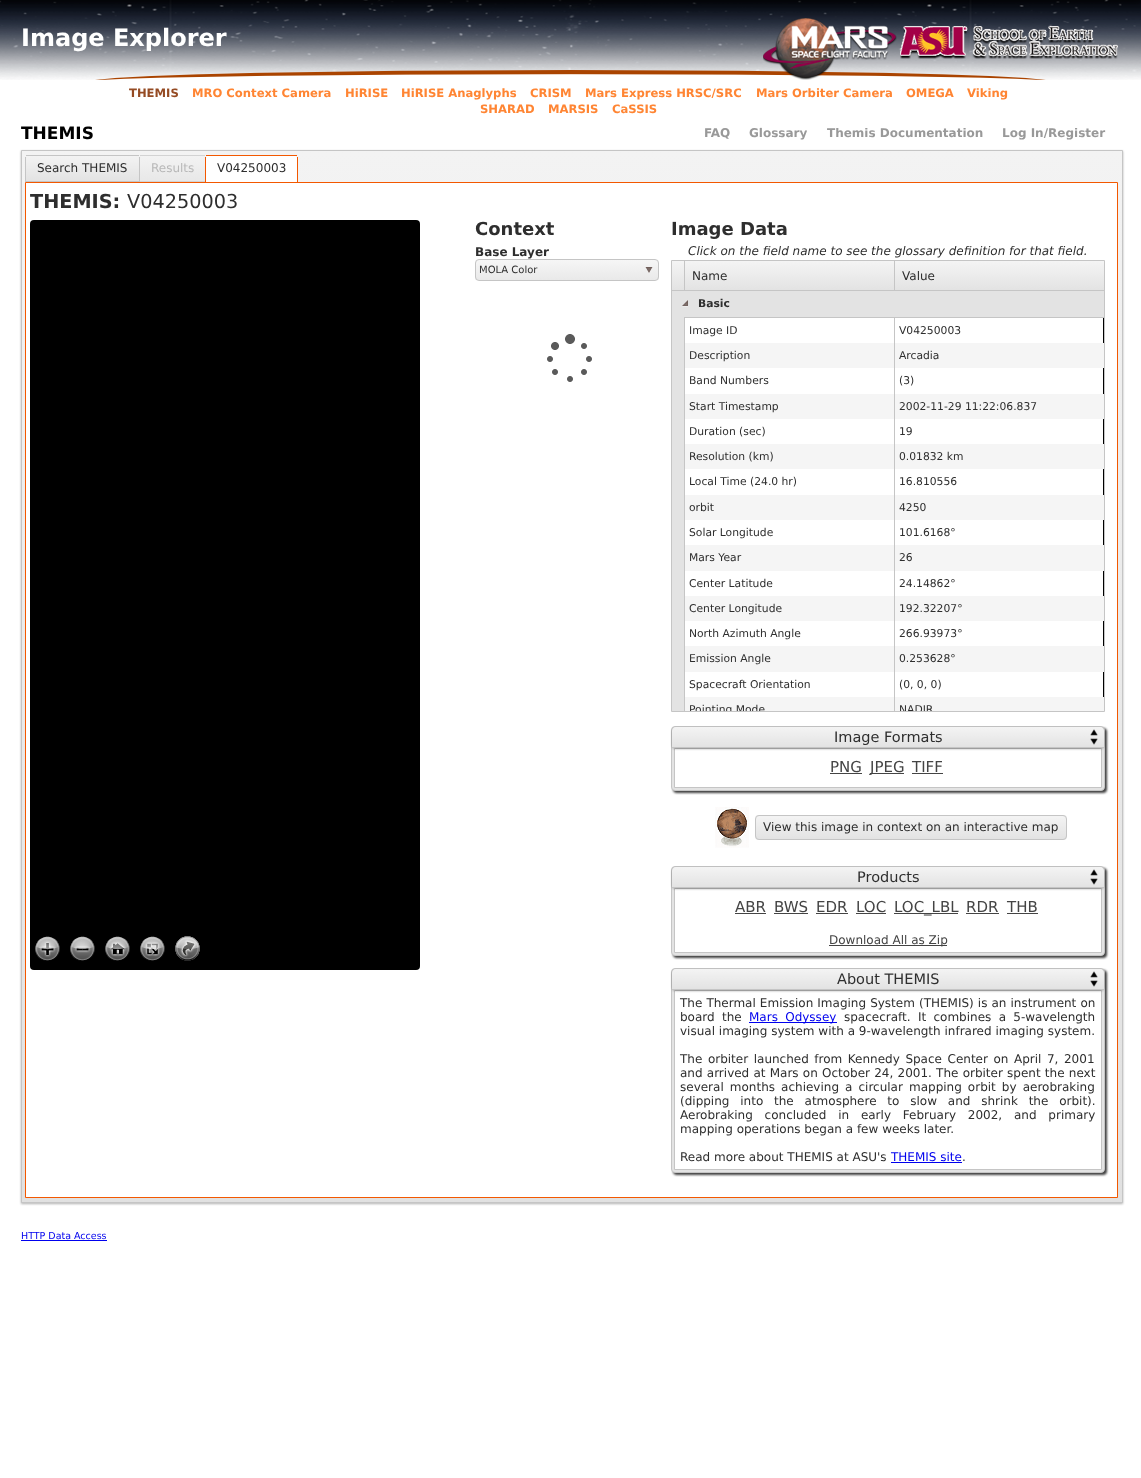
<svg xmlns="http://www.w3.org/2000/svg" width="1141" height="1478">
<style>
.a{font:bold 24px DejaVu Sans;fill:#fff}
.b{font:bold 11.6px DejaVu Sans;fill:#954b23}
.c{font:bold 11.6px DejaVu Sans;fill:#ff8533}
.d{font:bold 12px DejaVu Sans;fill:#999}
.e{font:bold 17px DejaVu Sans;fill:#000}
.f{font:12px DejaVu Sans;fill:#2e2e2e}
.g{font:12px DejaVu Sans;fill:#b8b8b8}
.h{font:bold 19.25px DejaVu Sans;fill:#2e2e2e}
.i{font:19.25px DejaVu Sans;fill:#2e2e2e}
.j{font:bold 18px DejaVu Sans;fill:#2e2e2e}
.k{font:bold 12px DejaVu Sans;fill:#2e2e2e}
.l{font:10px DejaVu Sans;fill:#2e2e2e}
.m{font:italic 12px DejaVu Sans;fill:#2e2e2e}
.n{font:bold 10.75px DejaVu Sans;fill:#2e2e2e}
.o{font:10.75px DejaVu Sans;fill:#2e2e2e}
.p{font:14.5px DejaVu Sans;fill:#2e2e2e}
.q{font:15px DejaVu Sans;fill:#444}
.r{font:12px DejaVu Sans;fill:#444}
.s{font:12px DejaVu Sans;fill:#00e}
.t{font:9.5px DejaVu Sans;fill:#00e}
</style>
<defs>
<linearGradient id="g1" gradientUnits="userSpaceOnUse" x1="572" y1="151" x2="572" y2="1202"><stop offset="0" stop-color="#f3f3f3"/><stop offset="1" stop-color="#e1e1e1"/></linearGradient>
<linearGradient id="g2" gradientUnits="userSpaceOnUse" x1="572" y1="151" x2="572" y2="1202"><stop offset="0" stop-color="#d3d3d3"/><stop offset="1" stop-color="#cdcdcd"/></linearGradient>
<linearGradient id="g3" gradientUnits="userSpaceOnUse" x1="83" y1="155" x2="83" y2="181"><stop offset="0" stop-color="#fff" stop-opacity="0.6"/><stop offset="1" stop-color="#fff" stop-opacity="0"/></linearGradient>
<linearGradient id="g4" gradientUnits="userSpaceOnUse" x1="173" y1="155" x2="173" y2="181"><stop offset="0" stop-color="#fbfbfb" stop-opacity="0.6"/><stop offset="1" stop-color="#fbfbfb" stop-opacity="0"/></linearGradient>
<clipPath id="clip1"><rect x="475" y="259" width="184" height="22" rx="4"/></clipPath>
<linearGradient id="g5" gradientUnits="userSpaceOnUse" x1="567" y1="260" x2="567" y2="280"><stop offset="0" stop-color="#f6f6f6"/><stop offset="1" stop-color="#e9e9e9"/></linearGradient>
<linearGradient id="g6" gradientUnits="userSpaceOnUse" x1="678" y1="261" x2="678" y2="290"><stop offset="0" stop-color="#f4f4f4"/><stop offset="1" stop-color="#e3e3e3"/></linearGradient>
<linearGradient id="g7" gradientUnits="userSpaceOnUse" x1="790" y1="261" x2="790" y2="290"><stop offset="0" stop-color="#f4f4f4"/><stop offset="1" stop-color="#e3e3e3"/></linearGradient>
<linearGradient id="g8" gradientUnits="userSpaceOnUse" x1="1000" y1="261" x2="1000" y2="290"><stop offset="0" stop-color="#f4f4f4"/><stop offset="1" stop-color="#e3e3e3"/></linearGradient>
<clipPath id="clip2"><rect x="755" y="815" width="312" height="25" rx="4"/></clipPath>
<linearGradient id="g9" gradientUnits="userSpaceOnUse" x1="911" y1="816" x2="911" y2="839"><stop offset="0" stop-color="#fff" stop-opacity="0.6"/><stop offset="1" stop-color="#fff" stop-opacity="0"/></linearGradient>
<clipPath id="clip3"><path d="M672 291h432v420H672z"/></clipPath>
<linearGradient id="g10" gradientUnits="userSpaceOnUse" x1="888" y1="727" x2="888" y2="747"><stop offset="0" stop-color="#fff" stop-opacity="0.6"/><stop offset="1" stop-color="#fff" stop-opacity="0"/></linearGradient>
<linearGradient id="g11" gradientUnits="userSpaceOnUse" x1="888" y1="867" x2="888" y2="887"><stop offset="0" stop-color="#fff" stop-opacity="0.6"/><stop offset="1" stop-color="#fff" stop-opacity="0"/></linearGradient>
<linearGradient id="g12" gradientUnits="userSpaceOnUse" x1="888" y1="969" x2="888" y2="989"><stop offset="0" stop-color="#fff" stop-opacity="0.6"/><stop offset="1" stop-color="#fff" stop-opacity="0"/></linearGradient>
<clipPath id="clip4"><path d="M685 697h209v14H685z"/></clipPath>
<clipPath id="clip5"><path d="M895 697h209v14H895z"/></clipPath>
</defs>
<rect width="100%" height="100%" fill="#fff"/>
<image href="1.png" x="0" y="0" width="1141" height="80"/>
<path fill="#000000cc" filter="blur(5px)" d="M0 -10h1141v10H0z"/>
<image href="2.png" x="95" y="70" width="951" height="10"/>
<image href="3.png" x="763" y="18" width="355" height="62"/>
<path fill="#0000004d" filter="blur(1px)" d="M21 151h1102v1053H21z"/>
<path fill="url(#g1)" d="M22 151h1100v1051H22z"/>
<path fill="url(#g2)" d="M139 181h67v1H139z"/>
<path fill="none" stroke="#c5c5c5" d="M21.5 150.5h1101v1052H21.5z"/>
<path fill="#e3e3e3" d="M29 155h107c2 0 3 2 3 4v22h-113v-22c0-2 1-4 3-4z"/>
<path fill="url(#g3)" d="M29 155h107c2 0 3 2 3 4v22h-113v-22c0-2 1-4 3-4z"/>
<path fill="#c5c5c5" d="M139 157h1v25H139z"/>
<path fill="#c5c5c5" d="M25 181h115v1H25z"/>
<path fill="#c5c5c5" d="M25 157h1v25H25z"/>
<path fill="#c5c5c5" d="M26 155h113v1H26z"/>
<path fill="#e8e8e8" d="M143 155h59c2 0 3 2 3 4v22h-65v-22c0-2 1-4 3-4z"/>
<path fill="url(#g4)" d="M143 155h59c2 0 3 2 3 4v22h-65v-22c0-2 1-4 3-4z"/>
<path fill="#d3d3d3" d="M140 155h65v1H140z"/>
<path fill="#fff" d="M209 155h85c2 0 3 2 3 4v23h-91v-23c0-2 1-4 3-4z"/>
<path fill="#fff" stroke="#f35800" d="M25.5 182.5h1092v1015H25.5z"/>
<path fill="#f35800" d="M297 157h1v26H297z"/>
<path fill="#f35800" d="M205 157h1v26H205z"/>
<path fill="#f35800" d="M206 155h91v1H206z"/>
<rect fill="#000" x="30" y="220" width="390" height="750" rx="4"/>
<image href="4.png" x="35" y="936" width="25" height="25"/>
<image href="5.png" x="35" y="936" width="25" height="25"/>
<image href="6.png" x="70" y="936" width="25" height="25"/>
<image href="7.png" x="70" y="936" width="25" height="25"/>
<image href="8.png" x="105" y="936" width="25" height="25"/>
<image href="9.png" x="105" y="936" width="25" height="25"/>
<image href="10.png" x="140" y="936" width="25" height="25"/>
<image href="11.png" x="140" y="936" width="25" height="25"/>
<image href="12.png" x="175" y="936" width="25" height="25"/>
<image href="13.png" x="175" y="936" width="25" height="25"/>
<g clip-path="url(#clip1)">
<path fill="url(#g5)" d="M475 260h184v20H475z"/>
</g>
<rect fill="none" stroke="#c5c5c5" x="475.5" y="259.5" width="183" height="21" rx="3.5"/>
<image href="14.png" x="645" y="267" width="8" height="6"/>
<image href="15.png" x="547" y="334" width="45" height="48"/>
<path fill="none" stroke="#c5c5c5" d="M671.5 260.5h433v451H671.5z"/>
<path fill="#c5c5c5" d="M672 290h432v1H672z"/>
<path fill="url(#g6)" d="M672 261h12v29H672z"/>
<path fill="url(#g7)" d="M685 261h209v29H685z"/>
<path fill="#c5c5c5" d="M684 261h1v29H684z"/>
<path fill="url(#g8)" d="M895 261h209v29H895z"/>
<path fill="#c5c5c5" d="M894 261h1v29H894z"/>
<rect fill="#000000bf" filter="blur(1px)" x="673" y="728" width="434" height="65" rx="4"/>
<rect fill="#e3e3e3" stroke="#c5c5c5" x="671.5" y="726.5" width="433" height="64" rx="3.5"/>
<path fill="#fff" stroke="#c5c5c5" d="M674.5 748.5h427v39H674.5z"/>
<path fill="#444" d="M830 773h32v1H830z"/>
<path fill="#444" d="M870 773h34v1H870z"/>
<path fill="#444" d="M912 773h31v1H912z"/>
<image href="18.png" x="715" y="807" width="34" height="41"/>
<rect fill="#e3e3e3" x="755" y="815" width="312" height="25" rx="4"/>
<g clip-path="url(#clip2)">
<path fill="url(#g9)" d="M755 816h312v22H755z"/>
</g>
<rect fill="none" stroke="#c5c5c5" x="755.5" y="815.5" width="311" height="24" rx="3.5"/>
<rect fill="#000000bf" filter="blur(1px)" x="673" y="868" width="434" height="90" rx="4"/>
<rect fill="#e3e3e3" stroke="#c5c5c5" x="671.5" y="866.5" width="433" height="89" rx="3.5"/>
<path fill="#fff" stroke="#c5c5c5" d="M674.5 888.5h427v64H674.5z"/>
<path fill="#444" d="M735 913h31v1H735z"/>
<path fill="#444" d="M774 913h34v1H774z"/>
<path fill="#444" d="M816 913h32v1H816z"/>
<path fill="#444" d="M856 913h30v1H856z"/>
<path fill="#444" d="M894 913h64v1H894z"/>
<path fill="#444" d="M966 913h33v1H966z"/>
<path fill="#444" d="M1007 913h31v1H1007z"/>
<path fill="#444" d="M829 945h118v1H829z"/>
<rect fill="#000000bf" filter="blur(1px)" x="673" y="970" width="434" height="205" rx="4"/>
<rect fill="#e3e3e3" stroke="#c5c5c5" x="671.5" y="968.5" width="433" height="204" rx="3.5"/>
<path fill="#fff" stroke="#c5c5c5" d="M674.5 990.5h427v179H674.5z"/>
<path fill="#00e" d="M749 1022h88v1H749z"/>
<path fill="#00e" d="M891 1162h71v1H891z"/>
<g clip-path="url(#clip3)">
<path fill="none" stroke="#000" d="M672.5 291.5h431v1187H672.5z"/>
</g>
<path fill="#e3e3e3" d="M672 291h432v26H672z"/>
<image href="16.png" x="682" y="300" width="6" height="7"/>
<path fill="#e3e3e3" d="M672 317h12v394H672z"/>
<path fill="#c5c5c5" d="M684 317h420v1H684z"/>
<path fill="#c5c5c5" d="M684 317h1v394H684z"/>
<path fill="#f5f5f5" d="M685 343h419v25H685z"/>
<path fill="#f5f5f5" d="M685 394h419v25H685z"/>
<path fill="#f5f5f5" d="M685 444h419v25H685z"/>
<path fill="#f5f5f5" d="M685 495h419v25H685z"/>
<path fill="#f5f5f5" d="M685 545h419v26H685z"/>
<path fill="#f5f5f5" d="M685 596h419v25H685z"/>
<path fill="#f5f5f5" d="M685 646h419v26H685z"/>
<path fill="#f5f5f5" d="M685 697h419v14H685z"/>
<path fill="#c5c5c5" d="M894 317h1v394H894z"/>
<rect fill="#0000004d" filter="blur(1px)" x="672" y="728" width="432" height="21" rx="4"/>
<path fill="#e3e3e3" d="M676 727h424c2 0 4 2 4 4v17h-432v-17c0-2 2-4 4-4z"/>
<path fill="url(#g10)" d="M676 727h424c2 0 4 2 4 4v16h-432v-16c0-2 2-4 4-4z"/>
<path fill="#c5c5c5" d="M672 747h432v1H672z"/>
<image href="17.png" x="1090" y="729" width="8" height="16"/>
<rect fill="#0000004d" filter="blur(1px)" x="672" y="868" width="432" height="21" rx="4"/>
<path fill="#e3e3e3" d="M676 867h424c2 0 4 2 4 4v17h-432v-17c0-2 2-4 4-4z"/>
<path fill="url(#g11)" d="M676 867h424c2 0 4 2 4 4v16h-432v-16c0-2 2-4 4-4z"/>
<path fill="#c5c5c5" d="M672 887h432v1H672z"/>
<image href="17.png" x="1090" y="869" width="8" height="16"/>
<rect fill="#0000004d" filter="blur(1px)" x="672" y="970" width="432" height="21" rx="4"/>
<path fill="#e3e3e3" d="M676 969h424c2 0 4 2 4 4v17h-432v-17c0-2 2-4 4-4z"/>
<path fill="url(#g12)" d="M676 969h424c2 0 4 2 4 4v16h-432v-16c0-2 2-4 4-4z"/>
<path fill="#c5c5c5" d="M672 989h432v1H672z"/>
<image href="17.png" x="1090" y="971" width="8" height="16"/>
<path fill="#00e" d="M21 1240h86v1H21z"/>
<text class="a" x="21" y="46">Image Explorer</text>
<text class="b" x="129" y="97">THEMIS</text>
<text class="c" x="192" y="97">MRO Context Camera</text>
<text class="c" x="345" y="97">HiRISE</text>
<text class="c" x="401" y="97">HiRISE Anaglyphs</text>
<text class="c" x="530" y="97">CRISM</text>
<text class="c" x="585" y="97">Mars Express HRSC/SRC</text>
<text class="c" x="756" y="97">Mars Orbiter Camera</text>
<text class="c" x="906" y="97">OMEGA</text>
<text class="c" x="967" y="97">Viking</text>
<text class="c" x="480" y="113">SHARAD</text>
<text class="c" x="548" y="113">MARSIS</text>
<text class="c" x="612" y="113">CaSSIS</text>
<text class="d" x="704" y="137">FAQ</text>
<text class="d" x="749" y="137">Glossary</text>
<text class="d" x="827" y="137">Themis Documentation</text>
<text class="d" x="1002" y="137">Log In/Register</text>
<text class="e" x="21" y="139">THEMIS</text>
<text class="f" x="37" y="172">Search THEMIS</text>
<text class="g" x="151" y="172">Results</text>
<text class="f" x="217" y="172">V04250003</text>
<text class="h" x="30" y="208">THEMIS:</text>
<text class="i" x="127" y="208">V04250003</text>
<text class="j" x="475" y="235">Context</text>
<text class="k" x="475" y="256">Base Layer</text>
<text class="l" x="479" y="273">MOLA Color</text>
<text class="j" x="671" y="235">Image Data</text>
<text class="m" x="688" y="255">Click on the field name to see the glossary definition for that field.</text>
<text class="f" x="692" y="280">Name</text>
<text class="f" x="902" y="280">Value</text>
<text class="n" x="698" y="307">Basic</text>
<text class="o" x="689" y="334">Image ID</text>
<text class="o" x="899" y="334">V04250003</text>
<text class="o" x="689" y="359">Description</text>
<text class="o" x="899" y="359">Arcadia</text>
<text class="o" x="689" y="384">Band Numbers</text>
<text class="o" x="899" y="384">(3)</text>
<text class="o" x="689" y="410">Start Timestamp</text>
<text class="o" x="899" y="410">2002-11-29 11:22:06.837</text>
<text class="o" x="689" y="435">Duration (sec)</text>
<text class="o" x="899" y="435">19</text>
<text class="o" x="689" y="460">Resolution (km)</text>
<text class="o" x="899" y="460">0.01832 km</text>
<text class="o" x="689" y="485">Local Time (24.0 hr)</text>
<text class="o" x="899" y="485">16.810556</text>
<text class="o" x="689" y="511">orbit</text>
<text class="o" x="899" y="511">4250</text>
<text class="o" x="689" y="536">Solar Longitude</text>
<text class="o" x="899" y="536">101.6168°</text>
<text class="o" x="689" y="561">Mars Year</text>
<text class="o" x="899" y="561">26</text>
<text class="o" x="689" y="587">Center Latitude</text>
<text class="o" x="899" y="587">24.14862°</text>
<text class="o" x="689" y="612">Center Longitude</text>
<text class="o" x="899" y="612">192.32207°</text>
<text class="o" x="689" y="637">North Azimuth Angle</text>
<text class="o" x="899" y="637">266.93973°</text>
<text class="o" x="689" y="662">Emission Angle</text>
<text class="o" x="899" y="662">0.253628°</text>
<text class="o" x="689" y="688">Spacecraft Orientation</text>
<text class="o" x="899" y="688">(0, 0, 0)</text>
<g clip-path="url(#clip4)">
<text class="o" x="689" y="713">Pointing Mode</text>
</g>
<g clip-path="url(#clip5)">
<text class="o" x="899" y="713">NADIR</text>
</g>
<text class="p" x="834" y="742">Image Formats</text>
<text class="q" x="830" y="772">PNG</text>
<text class="q" x="870" y="772">JPEG</text>
<text class="q" x="912" y="772">TIFF</text>
<text class="f" x="763" y="831">View this image in context on an interactive map</text>
<text class="p" x="857" y="882">Products</text>
<text class="q" x="735" y="912">ABR</text>
<text class="q" x="774" y="912">BWS</text>
<text class="q" x="816" y="912">EDR</text>
<text class="q" x="856" y="912">LOC</text>
<text class="q" x="894" y="912">LOC_LBL</text>
<text class="q" x="966" y="912">RDR</text>
<text class="q" x="1007" y="912">THB</text>
<text class="r" x="829" y="944">Download All as Zip</text>
<text class="p" x="837" y="984">About THEMIS</text>
<text class="f" x="680" y="1007" word-spacing="0.25">The Thermal Emission Imaging System (THEMIS) is an instrument on</text>
<text class="f" x="680" y="1021" word-spacing="3.5">board the</text>
<text class="s" x="749" y="1021" word-spacing="3.5">Mars Odyssey</text>
<text class="f" x="844" y="1021" word-spacing="3.5">spacecraft. It combines a 5-wavelength</text>
<text class="f" x="680" y="1035">visual imaging system with a 9-wavelength infrared imaging system.</text>
<text class="f" x="680" y="1063" word-spacing="1.75">The orbiter launched from Kennedy Space Center on April 7, 2001</text>
<text class="f" x="680" y="1077" word-spacing="0.4">and arrived at Mars on October 24, 2001. The orbiter spent the next</text>
<text class="f" x="680" y="1091" word-spacing="2.25">several months achieving a circular mapping orbit by aerobraking</text>
<text class="f" x="680" y="1105" word-spacing="7">(dipping into the atmosphere to slow and shrink the orbit).</text>
<text class="f" x="680" y="1119" word-spacing="8">Aerobraking concluded in early February 2002, and primary</text>
<text class="f" x="680" y="1133">mapping operations began a few weeks later.</text>
<text class="f" x="680" y="1161">Read more about THEMIS at ASU's</text>
<text class="s" x="891" y="1161">THEMIS site</text>
<text class="f" x="962" y="1161">.</text>
<text class="t" x="21" y="1239">HTTP Data Access</text>
</svg>
